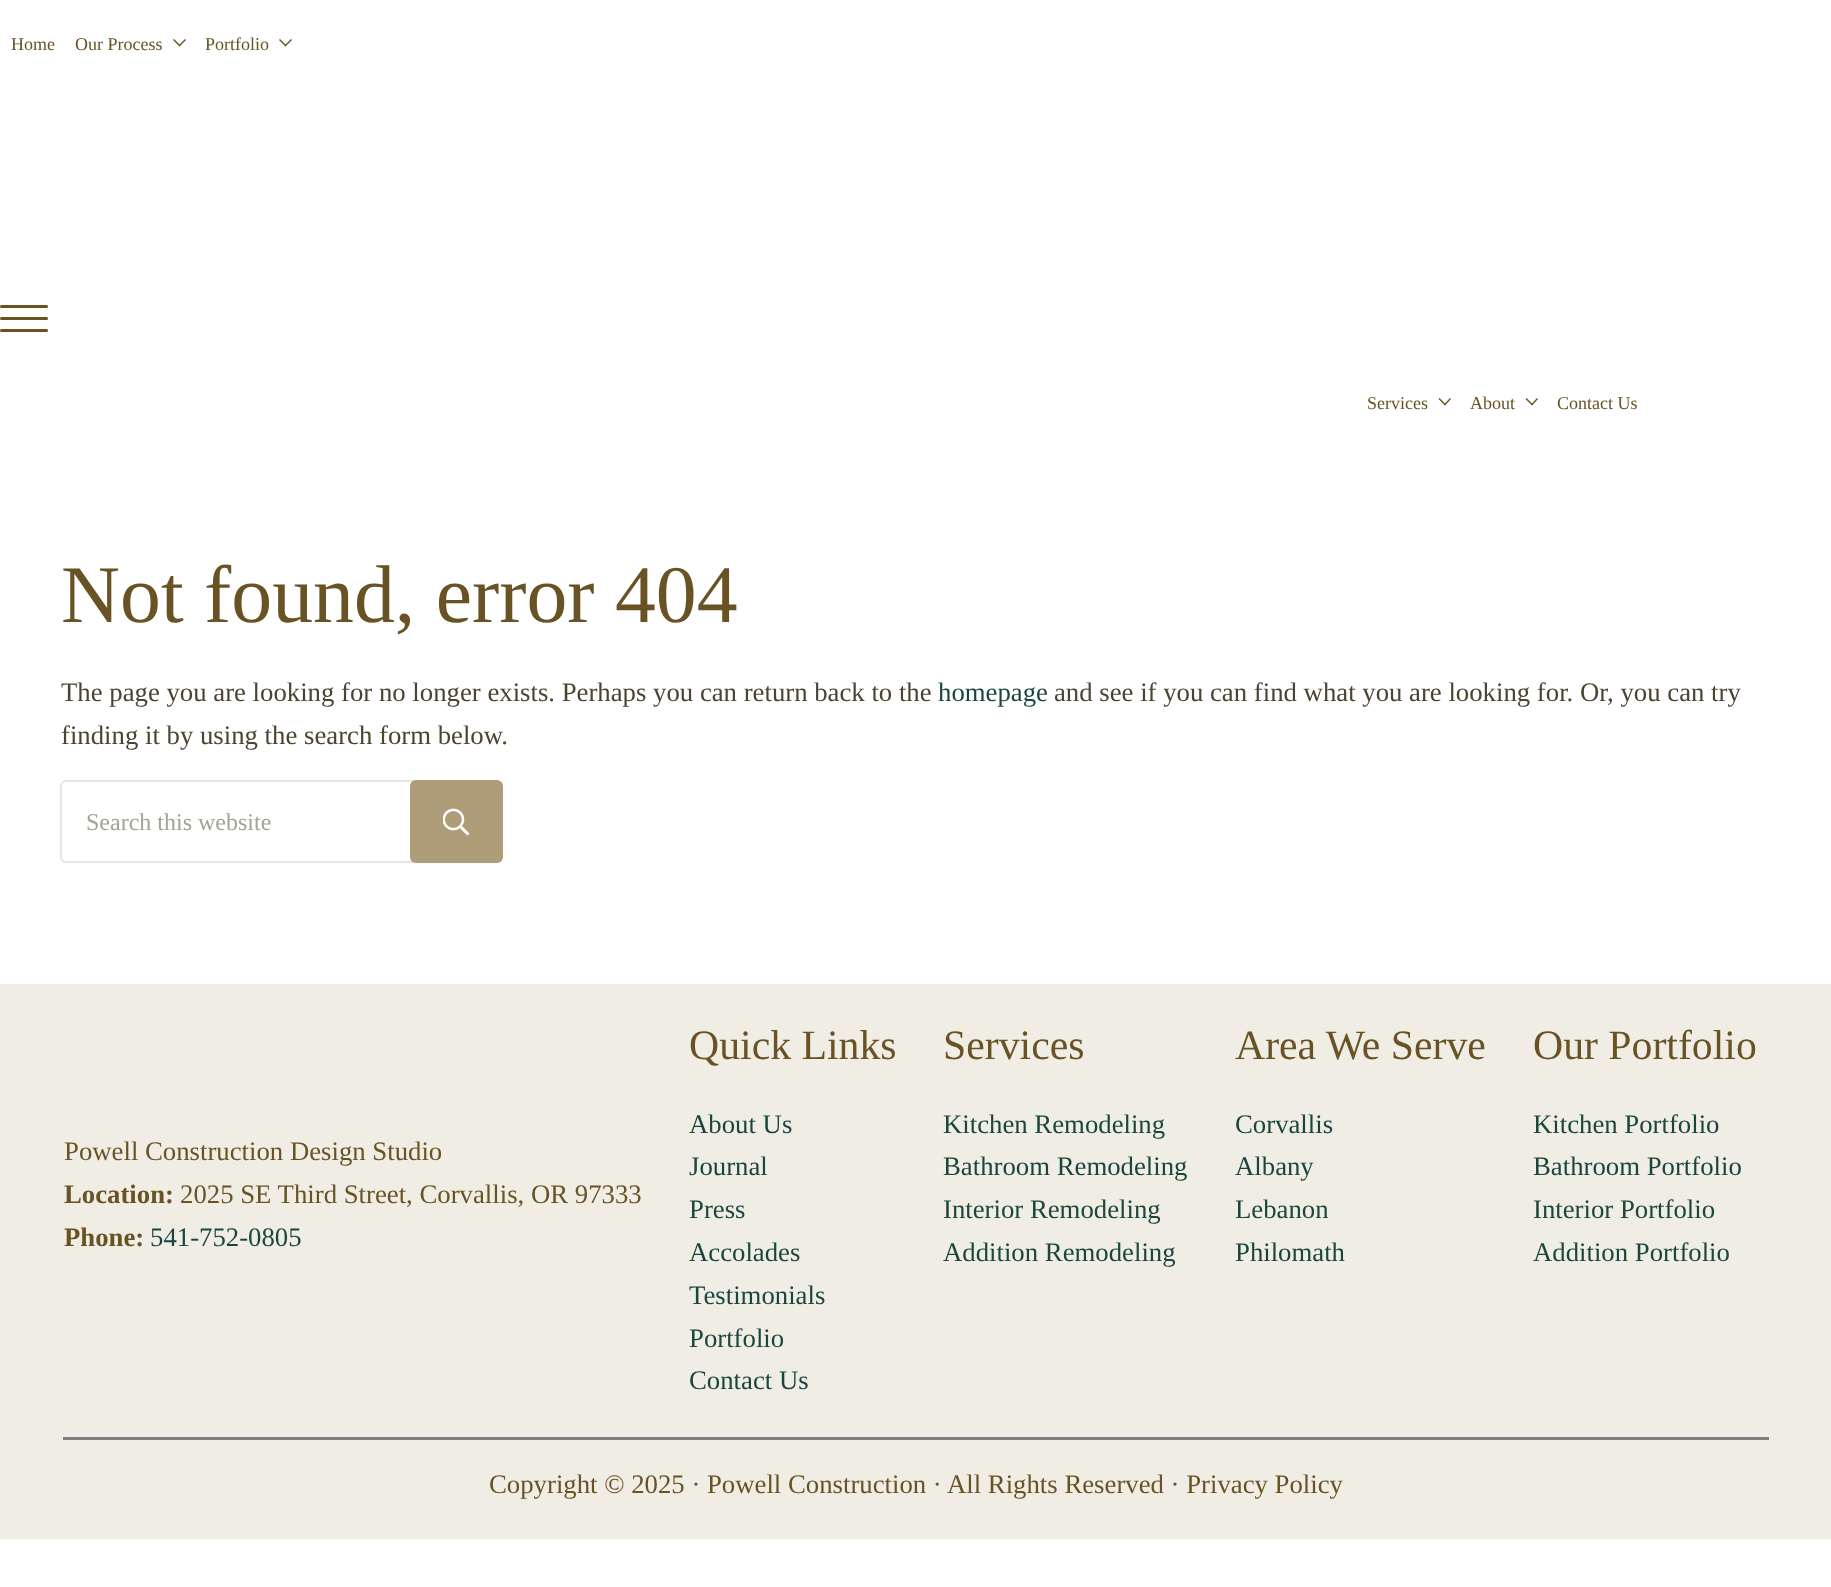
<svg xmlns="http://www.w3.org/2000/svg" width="1831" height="1587">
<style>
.a{font:18px Liberation Serif;fill:#695324}
.b{font:81.75px Liberation Serif;fill:#695324}
.c{font:26.75px Liberation Serif;fill:#4c442f}
.d{font:26.75px Liberation Serif;fill:#1b463d}
.e{font:24px Liberation Serif;fill:#a6a297}
.f{font:26.75px Liberation Serif;fill:#695324}
.g{font:bold 26.75px Liberation Serif;fill:#695324}
.h{font:41.75px Liberation Serif;fill:#695324}
</style>
<rect width="100%" height="100%" fill="#fff"/>
<path fill="#695324" d="M185 39l1 1l-6.5 6.5l-1-1z"/>
<path fill="#695324" d="M174 39l6.5 6.5l-1 1l-6.5-6.5z"/>
<path fill="#695324" d="M291 39l1 1l-6.5 6.5l-1-1z"/>
<path fill="#695324" d="M280 39l6.5 6.5l-1 1l-6.5-6.5z"/>
<rect fill="#695324" y="317" width="48" height="3" rx="1.5"/>
<rect fill="#695324" y="305" width="48" height="3" rx="1.5"/>
<rect fill="#695324" y="329" width="48" height="3" rx="1.5"/>
<path fill="#695324" d="M1450 398l1 1l-6 6.5l-1-1z"/>
<path fill="#695324" d="M1439.5 398l6.5 6.5l-1 1l-6.5-6.5z"/>
<path fill="#695324" d="M1537 398l1 1l-6 6.5l-1-1z"/>
<path fill="#695324" d="M1526.5 398l6.5 6.5l-1 1l-6.5-6.5z"/>
<rect fill="none" stroke="#e6e6e6" stroke-width="2" x="61" y="781" width="384" height="81" rx="5"/>
<rect fill="#ae9d78" x="410" y="780" width="93" height="83" rx="6"/>
<image href="1.png" x="443" y="808" width="27" height="28"/>
<path fill="#f0ede5" d="M0 984h1831v555H0z"/>
<path fill="#808080" d="M63 1437h1706v3H63z"/>
<text class="a" x="11" y="50">Home</text>
<text class="a" x="75" y="50">Our Process</text>
<text class="a" x="205" y="50">Portfolio</text>
<text class="a" x="1367" y="409">Services</text>
<text class="a" x="1470" y="409">About</text>
<text class="a" x="1557" y="409">Contact Us</text>
<text class="b" x="61" y="622">Not found, error 404</text>
<text class="c" x="61" y="701">The page you are looking for no longer exists. Perhaps you can return back to the</text>
<text class="d" x="938" y="701">homepage</text>
<text class="c" x="1054" y="701">and see if you can find what you are looking for. Or, you can try</text>
<text class="c" x="61" y="744">finding it by using the search form below.</text>
<text class="e" x="86" y="830">Search this website</text>
<text class="f" x="64" y="1160">Powell Construction Design Studio</text>
<text class="g" x="64" y="1203">Location:</text>
<text class="f" x="180" y="1203">2025 SE Third Street, Corvallis, OR 97333</text>
<text class="g" x="64" y="1246">Phone:</text>
<text class="d" x="150" y="1246">541-752-0805</text>
<text class="h" x="689" y="1059">Quick Links</text>
<text class="d" x="689" y="1133">About Us</text>
<text class="d" x="689" y="1175">Journal</text>
<text class="d" x="689" y="1218">Press</text>
<text class="d" x="689" y="1261">Accolades</text>
<text class="d" x="689" y="1304">Testimonials</text>
<text class="d" x="689" y="1347">Portfolio</text>
<text class="d" x="689" y="1389">Contact Us</text>
<text class="h" x="943" y="1059">Services</text>
<text class="d" x="943" y="1133">Kitchen Remodeling</text>
<text class="d" x="943" y="1175">Bathroom Remodeling</text>
<text class="d" x="943" y="1218">Interior Remodeling</text>
<text class="d" x="943" y="1261">Addition Remodeling</text>
<text class="h" x="1235" y="1059">Area We Serve</text>
<text class="d" x="1235" y="1133">Corvallis</text>
<text class="d" x="1235" y="1175">Albany</text>
<text class="d" x="1235" y="1218">Lebanon</text>
<text class="d" x="1235" y="1261">Philomath</text>
<text class="h" x="1533" y="1059">Our Portfolio</text>
<text class="d" x="1533" y="1133">Kitchen Portfolio</text>
<text class="d" x="1533" y="1175">Bathroom Portfolio</text>
<text class="d" x="1533" y="1218">Interior Portfolio</text>
<text class="d" x="1533" y="1261">Addition Portfolio</text>
<text class="f" x="489" y="1493">Copyright © 2025 · Powell Construction · All Rights Reserved · Privacy Policy</text>
</svg>
